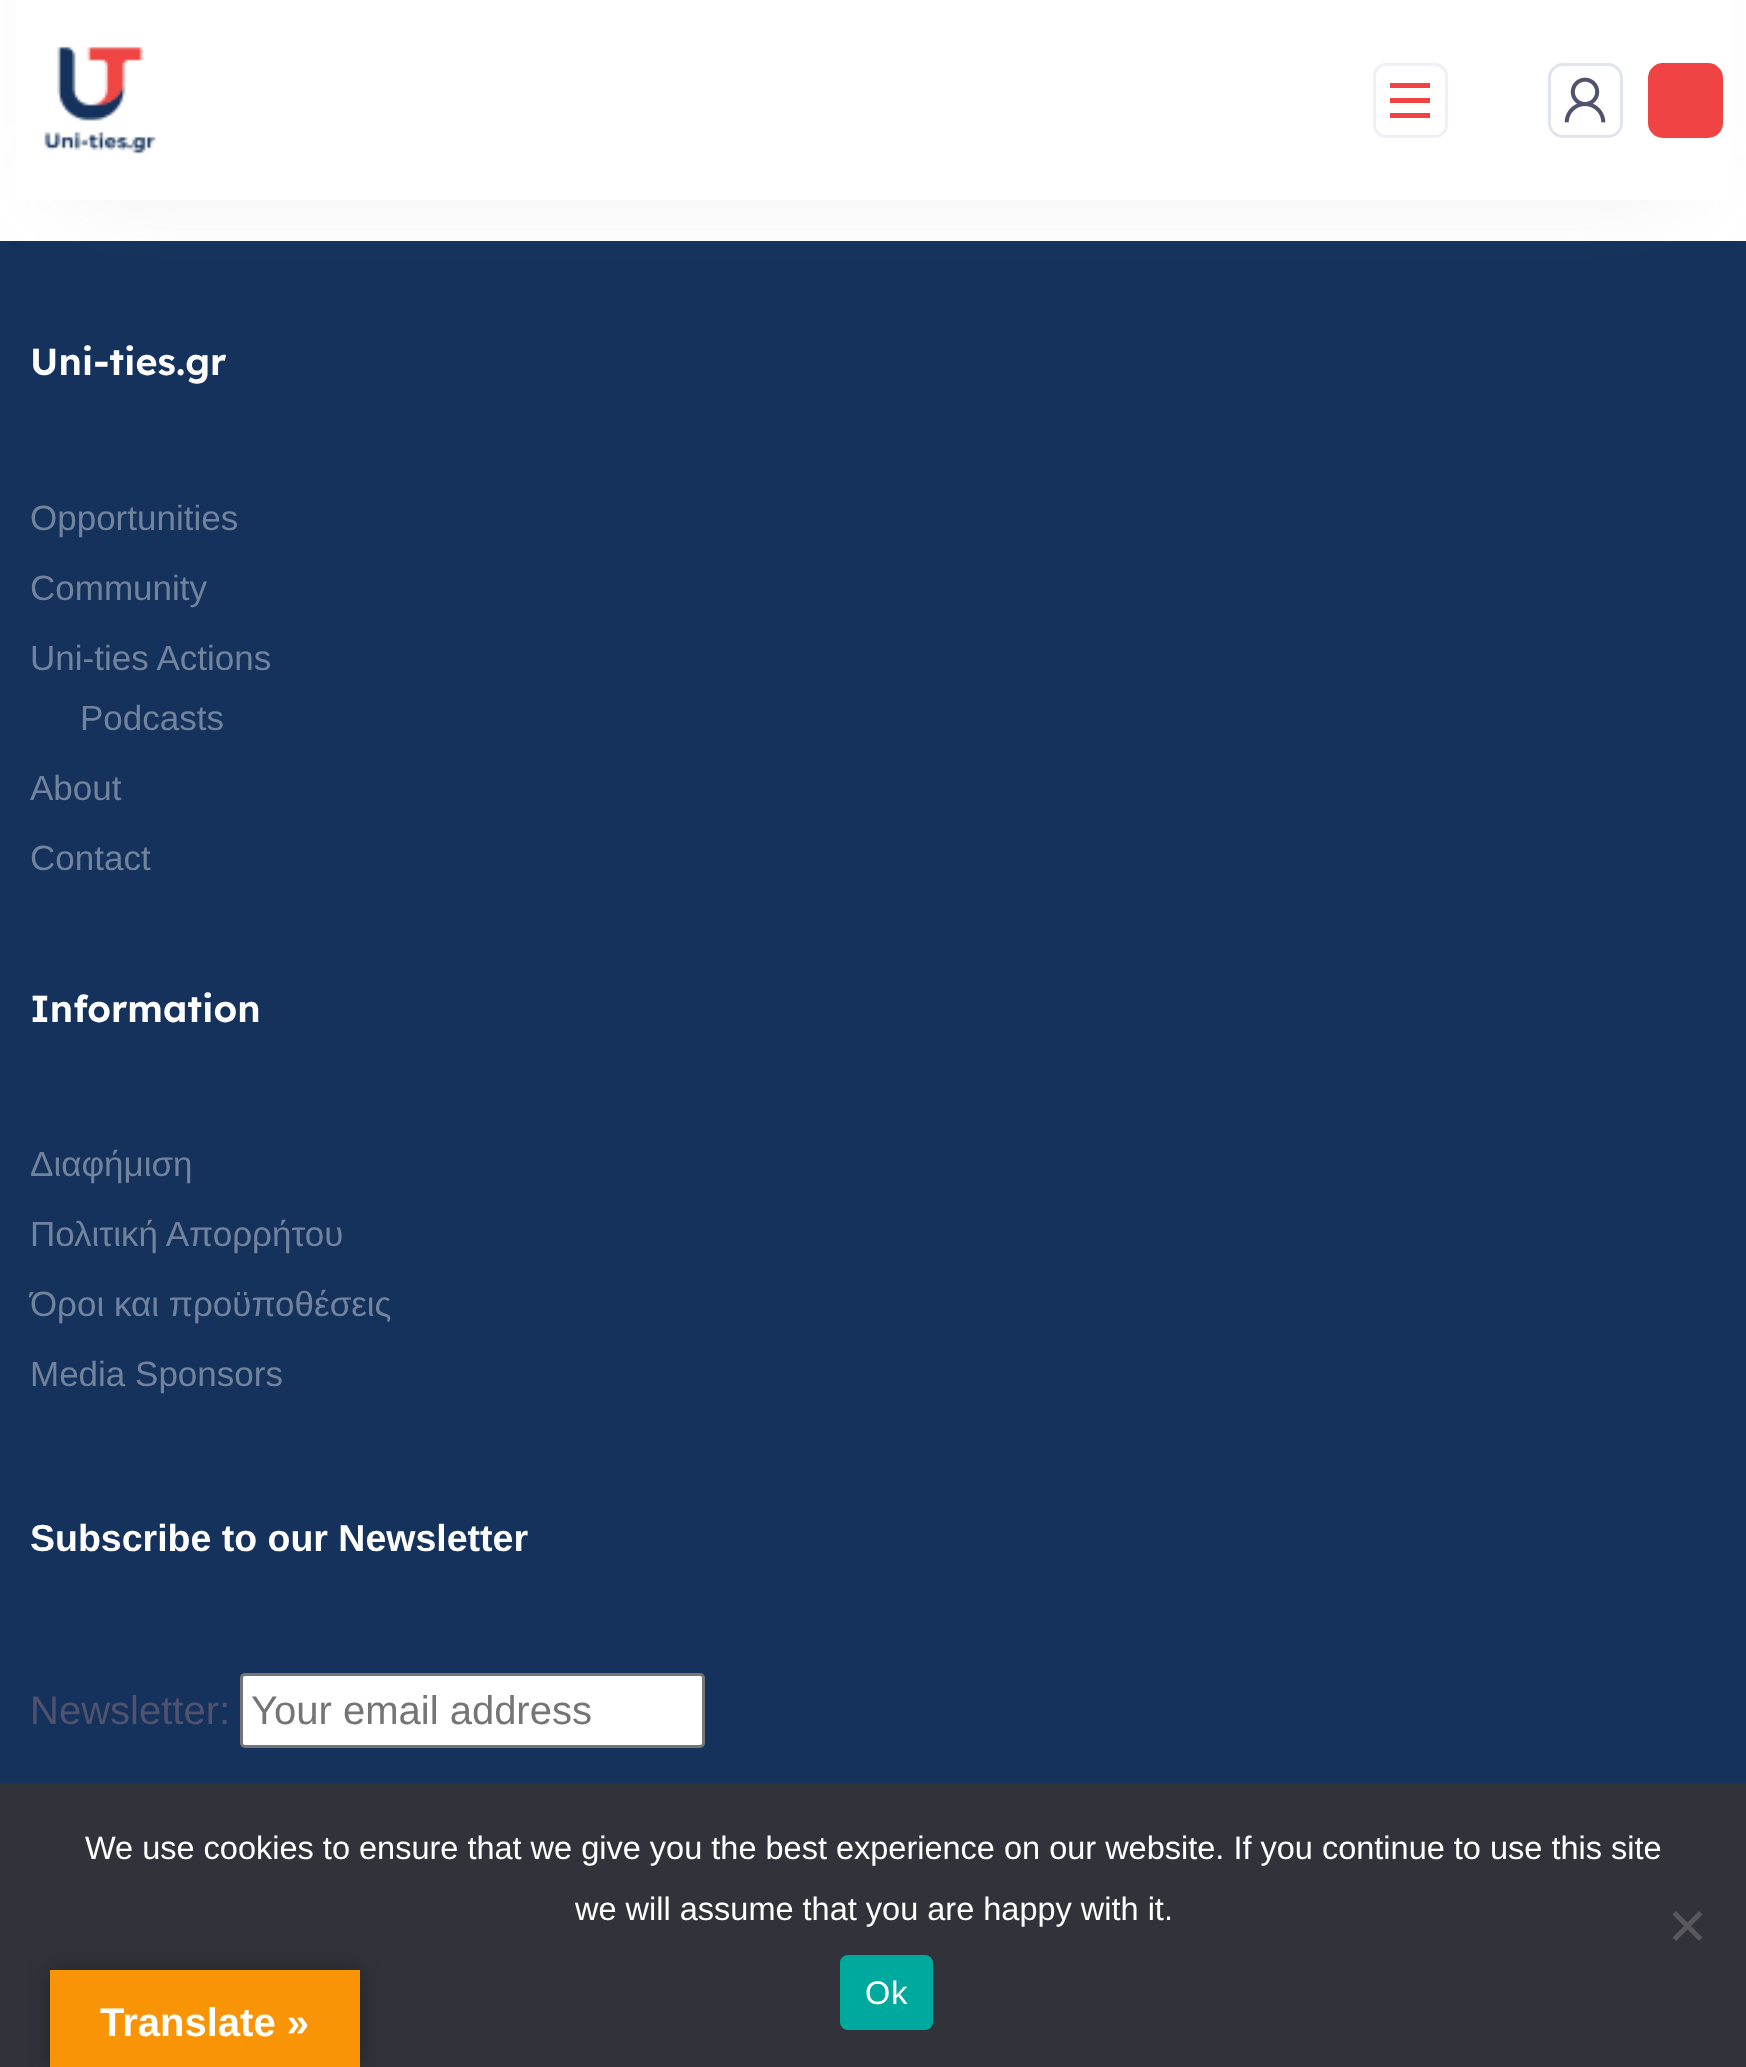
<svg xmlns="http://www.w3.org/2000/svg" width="1746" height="2067">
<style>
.a{font:600 37.5px Lexend;fill:#fff}
.b{font:35px Liberation Sans;fill:#72849d}
.c{font:bold 37.5px Liberation Sans;fill:#fff}
.d{font:40px Liberation Sans;fill:#51526e}
.e{font:40px Liberation Sans;fill:#757575}
.f{font:32.5px Liberation Sans;fill:#fff}
.g{font:32.5px Liberation Sans;letter-spacing:1px;fill:#fff}
.h{font:bold 40px Liberation Sans;fill:#fff}
</style>
<rect width="100%" height="100%" fill="#fff"/>
<path fill="#14325b" d="M0 241h1746v1542H0z"/>
<rect fill="#8f8e9f26" filter="blur(50px)" x="68" y="-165" width="1612" height="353" rx="15"/>
<path fill="#fff" d="M16 0h1716v200H16z"/>
<image href="1.png" x="44" y="46" width="112" height="108"/>
<rect fill="none" stroke="#eff1f6" stroke-width="3" x="1374.5" y="64.5" width="72" height="72" rx="11.5"/>
<path fill="#ef4443" d="M1390 83h40v5H1390z"/>
<path fill="#ef4443" d="M1390 98h40v5H1390z"/>
<path fill="#ef4443" d="M1390 113h40v5H1390z"/>
<rect fill="none" stroke="#e1e4ec" stroke-width="3" x="1549.5" y="64.5" width="72" height="72" rx="13.5"/>
<image href="2.png" x="1564" y="77" width="42" height="46"/>
<rect fill="#ef4443" stroke="#ef4443" stroke-width="3" x="1649.5" y="64.5" width="72" height="72" rx="13.5"/>
<rect fill="#fff" stroke="#767676" stroke-width="3" x="241.5" y="1674.5" width="462" height="72" rx="3.5"/>
<path fill="#32323a" d="M0 1783h1746v284H0z"/>
<path fill="#59595d" d="M1699 1911l3.5 3.5l-26.5 26.5l-3.5-3.5z"/>
<path fill="#59595d" d="M1672.5 1914.5l3.5-3.5l26.5 26.5l-3.5 3.5z"/>
<rect fill="#00a99d" x="840" y="1955" width="93" height="75" rx="8"/>
<path fill="#0000004d" filter="blur(11px)" d="M50 1970h310v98H50z"/>
<path fill="#f89406" d="M50 1970h310v97H50z"/>
<text class="a" x="30" y="375">Uni-ties.gr</text>
<text class="b" x="30" y="530">Opportunities</text>
<text class="b" x="30" y="600">Community</text>
<text class="b" x="30" y="670">Uni-ties Actions</text>
<text class="b" x="80" y="730">Podcasts</text>
<text class="b" x="30" y="800">About</text>
<text class="b" x="30" y="870">Contact</text>
<text class="a" x="30" y="1022">Information</text>
<text class="b" x="30" y="1176">Διαφήμιση</text>
<text class="b" x="30" y="1246">Πολιτική Απορρήτου</text>
<text class="b" x="30" y="1316">Όροι και προϋποθέσεις</text>
<text class="b" x="30" y="1386">Media Sponsors</text>
<text class="c" x="30" y="1551">Subscribe to our Newsletter</text>
<text class="d" x="30" y="1724">Newsletter:</text>
<text class="e" x="251" y="1724">Your email address</text>
<text class="f" x="85" y="1859">We use cookies to ensure that we give you the best experience on our website. If you continue to use this site</text>
<text class="f" x="575" y="1920">we will assume that you are happy with it.</text>
<text class="g" x="865" y="2004">Ok</text>
<text class="h" x="100" y="2036">Translate »</text>
</svg>
